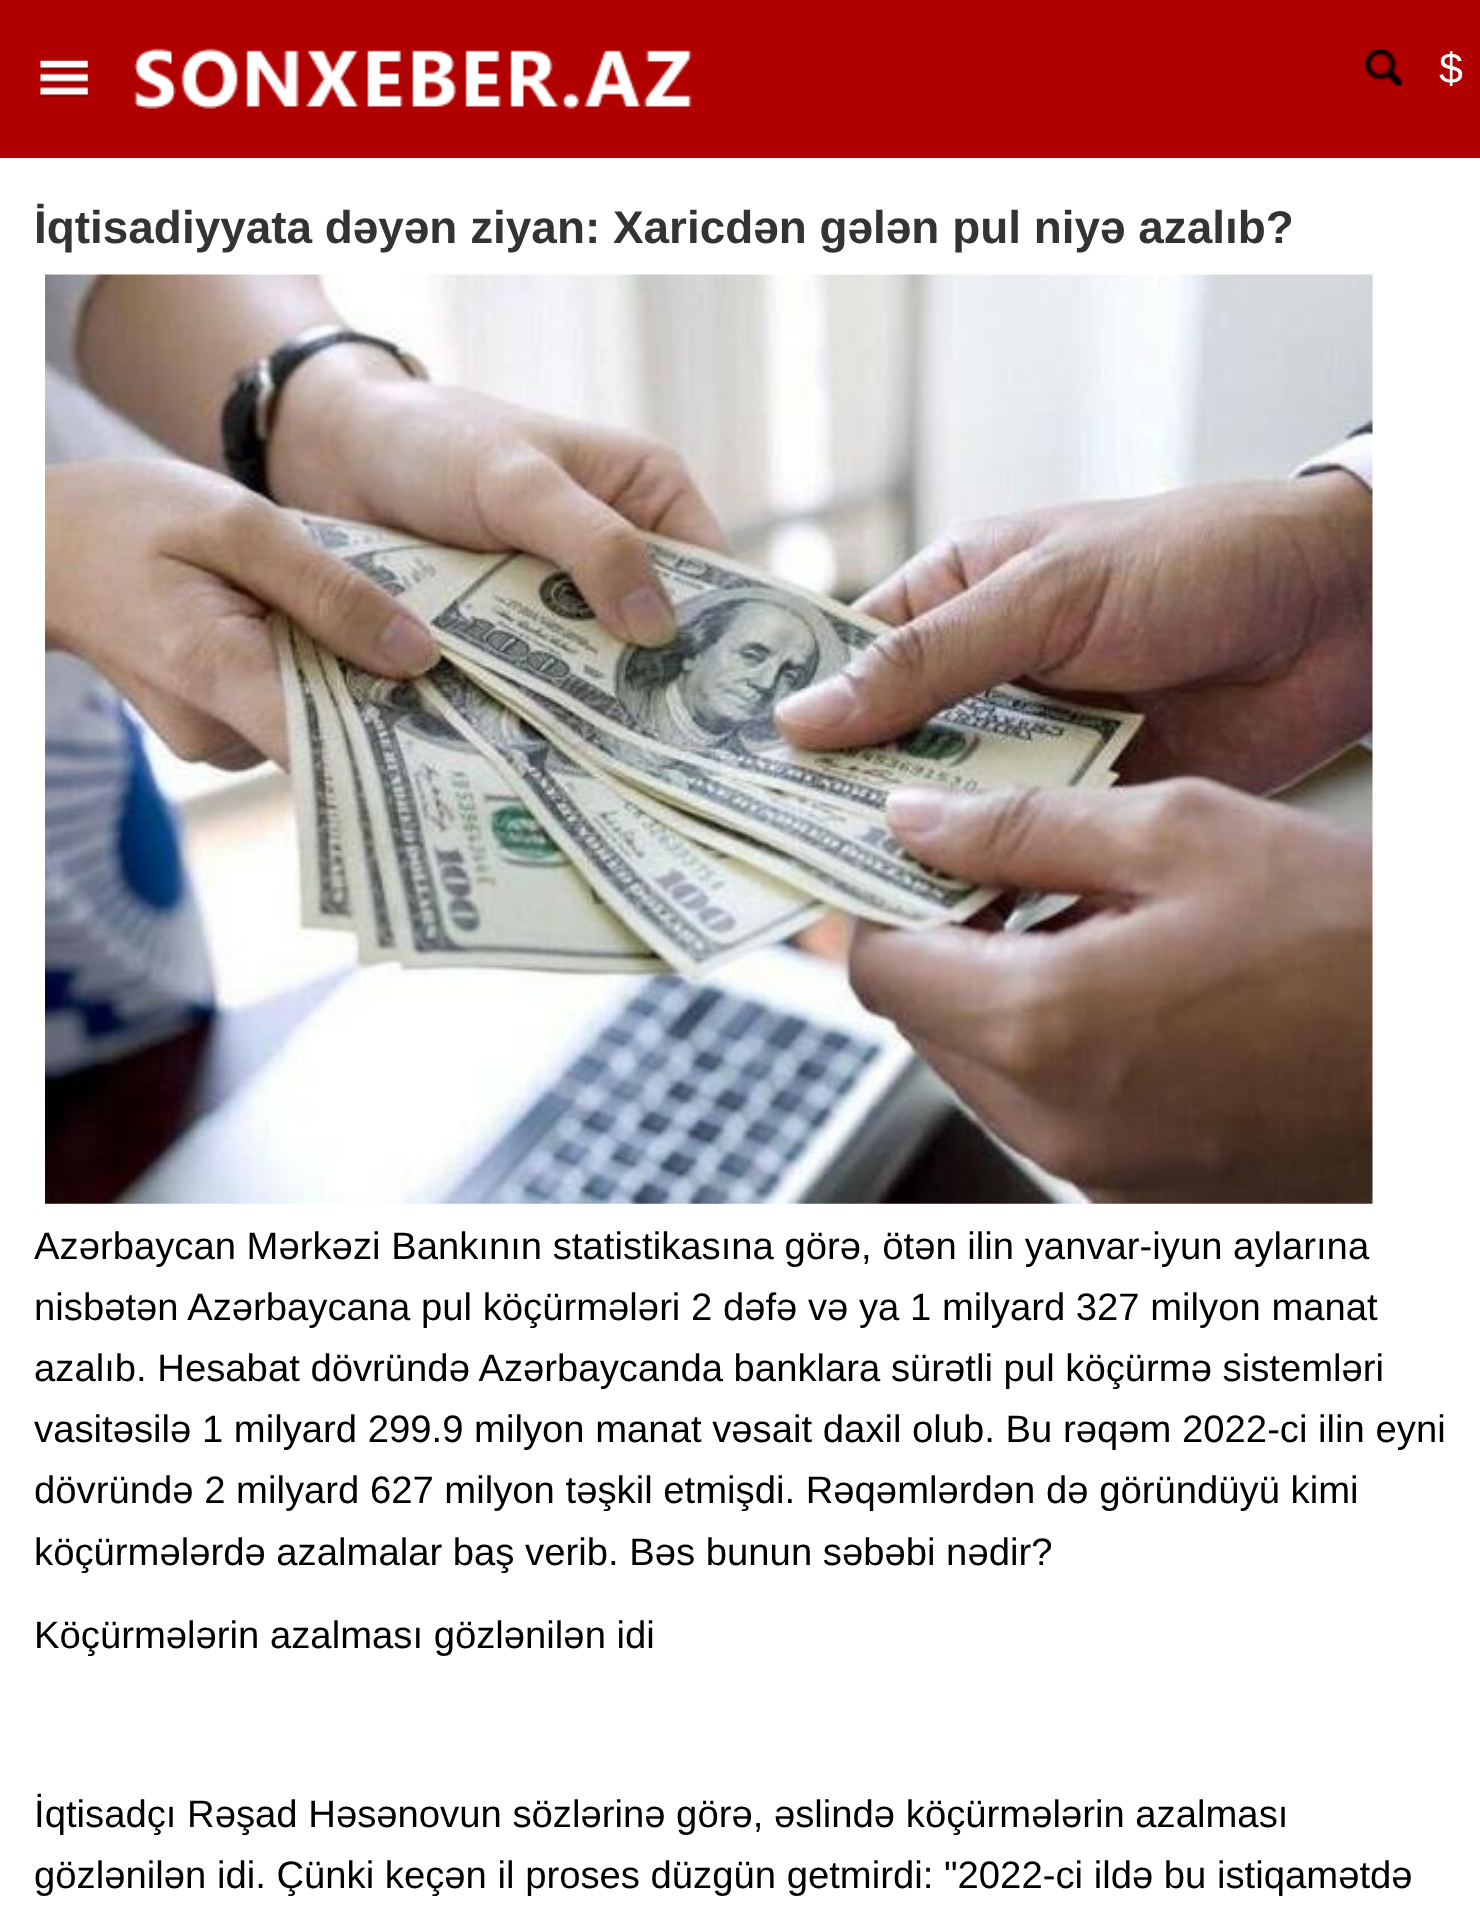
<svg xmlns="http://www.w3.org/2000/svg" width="1480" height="1920">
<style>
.a{font:43px Liberation Sans;fill:#fff}
.b{font:bold 45.9px Liberation Sans;fill:#333}
.c{font:38.25px Liberation Sans;fill:#000}
</style>
<rect width="100%" height="100%" fill="#fff"/>
<path fill="#b00002" d="M0 0h1480v158H0z"/>
<image href="1.png" x="40" y="60" width="48" height="37"/>
<image href="2.png" x="134" y="48" width="558" height="61"/>
<image href="3.png" x="1365" y="49" width="37" height="37"/>
<image href="4.png" x="45" y="274" width="1328" height="930"/>
<text class="a" x="1439" y="83">$</text>
<text class="b" x="34" y="243">İqtisadiyyata dəyən ziyan: Xaricdən gələn pul niyə azalıb?</text>
<text class="c" x="34" y="1259">Azərbaycan Mərkəzi Bankının statistikasına görə, ötən ilin yanvar-iyun aylarına</text>
<text class="c" x="34" y="1320">nisbətən Azərbaycana pul köçürmələri 2 dəfə və ya 1 milyard 327 milyon manat</text>
<text class="c" x="34" y="1381">azalıb. Hesabat dövründə Azərbaycanda banklara sürətli pul köçürmə sistemləri</text>
<text class="c" x="34" y="1442">vasitəsilə 1 milyard 299.9 milyon manat vəsait daxil olub. Bu rəqəm 2022-ci ilin eyni</text>
<text class="c" x="34" y="1503">dövründə 2 milyard 627 milyon təşkil etmişdi. Rəqəmlərdən də göründüyü kimi</text>
<text class="c" x="34" y="1565">köçürmələrdə azalmalar baş verib. Bəs bunun səbəbi nədir?</text>
<text class="c" x="34" y="1648">Köçürmələrin azalması gözlənilən idi</text>
<text class="c" x="34" y="1827">İqtisadçı Rəşad Həsənovun sözlərinə görə, əslində köçürmələrin azalması</text>
<text class="c" x="34" y="1888">gözlənilən idi. Çünki keçən il proses düzgün getmirdi: "2022-ci ildə bu istiqamətdə</text>
</svg>
